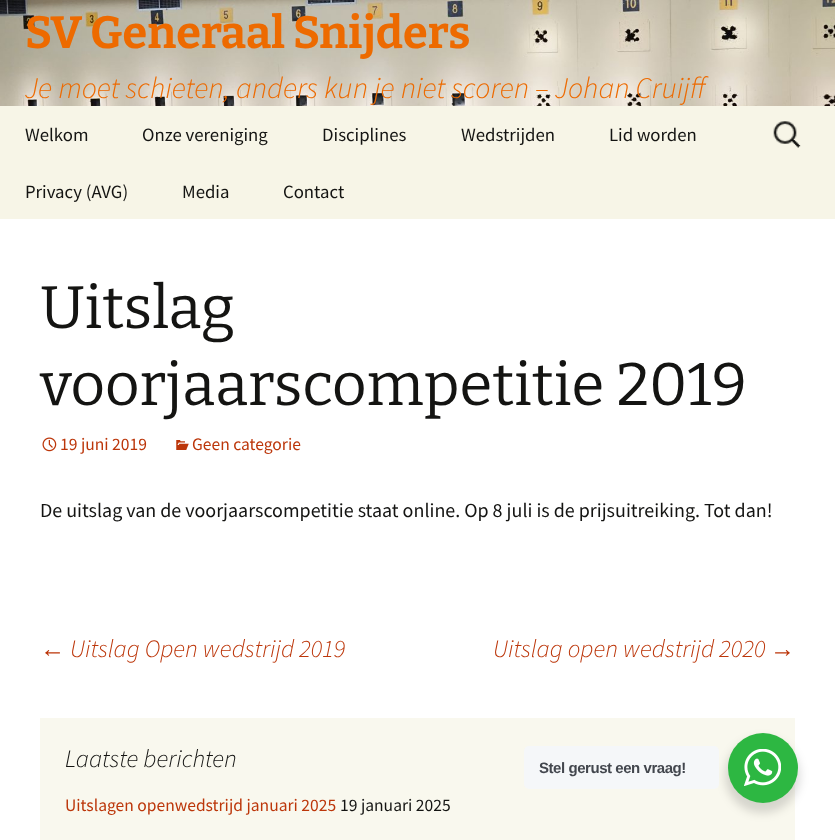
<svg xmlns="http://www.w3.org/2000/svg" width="835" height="840">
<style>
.a{font:100 45px Bitter;fill:#ed6a00}
.b{font:italic 300 30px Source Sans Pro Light;fill:#ed6a00}
.c{font:18.75px Source Sans Pro;fill:#141412}
.d{font:100 60px 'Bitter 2';fill:#141412}
.e{font:17.5px Source Sans Pro;fill:#bc360a}
.f{font:20px Source Sans Pro;fill:#141412}
.g{font:italic 25px Liberation Sans;fill:#bc360a}
.h{font:italic 300 25px Source Sans Pro Light;fill:#bc360a}
.i{font:italic 300 25px Source Sans Pro Light;fill:#141412}
.j{font:17.5px Source Sans Pro;fill:#141412}
.k{font:bold 15px Liberation Sans;letter-spacing:-0.45px;fill:#43474e}
</style>
<rect width="100%" height="100%" fill="#fff"/>
<image href="1.png" x="0" y="0" width="835" height="106"/>
<path fill="#f7f5e7" d="M0 106h835v113H0z"/>
<image href="2.png" x="773" y="121" width="28" height="27"/>
<image href="3.png" x="42" y="437" width="15" height="15"/>
<image href="4.png" x="176" y="440" width="13" height="10"/>
<path fill="#f9f8ee" d="M40 718h755v122H40z"/>
<rect fill="#00000024" filter="blur(5px)" x="725" y="738" width="75" height="75" rx="37.5"/>
<rect fill="#f5f7f9" x="524" y="746" width="195" height="43" rx="5"/>
<circle fill="#2db742" cx="763" cy="768" r="35"/>
<image href="5.png" x="744" y="749" width="37" height="37"/>
<text class="a" x="25" y="48">SV Generaal Snijders</text>
<text class="b" x="25" y="98">Je moet schieten, anders kun je niet scoren – Johan Cruijff</text>
<text class="c" x="25" y="141">Welkom</text>
<text class="c" x="142" y="141">Onze vereniging</text>
<text class="c" x="322" y="141">Disciplines</text>
<text class="c" x="461" y="141">Wedstrijden</text>
<text class="c" x="609" y="141">Lid worden</text>
<text class="c" x="25" y="198">Privacy (AVG)</text>
<text class="c" x="182" y="198">Media</text>
<text class="c" x="283" y="198">Contact</text>
<text class="d" x="40" y="328">Uitslag</text>
<text class="d" x="40" y="405">voorjaarscompetitie 2019</text>
<text class="e" x="60" y="450">19 juni 2019</text>
<text class="e" x="192" y="450">Geen categorie</text>
<text class="f" x="40" y="517">De uitslag van de voorjaarscompetitie staat online. Op 8 juli is de prijsuitreiking. Tot dan!</text>
<text class="g" x="40" y="657">←</text>
<text class="h" x="70" y="657">Uitslag Open wedstrijd 2019</text>
<text class="h" x="493" y="657">Uitslag open wedstrijd 2020</text>
<text class="g" x="770" y="657">→</text>
<text class="i" x="65" y="767">Laatste berichten</text>
<text class="e" x="65" y="811">Uitslagen openwedstrijd januari 2025</text>
<text class="j" x="340" y="811">19 januari 2025</text>
<text class="k" x="539" y="773">Stel gerust een vraag!</text>
</svg>
